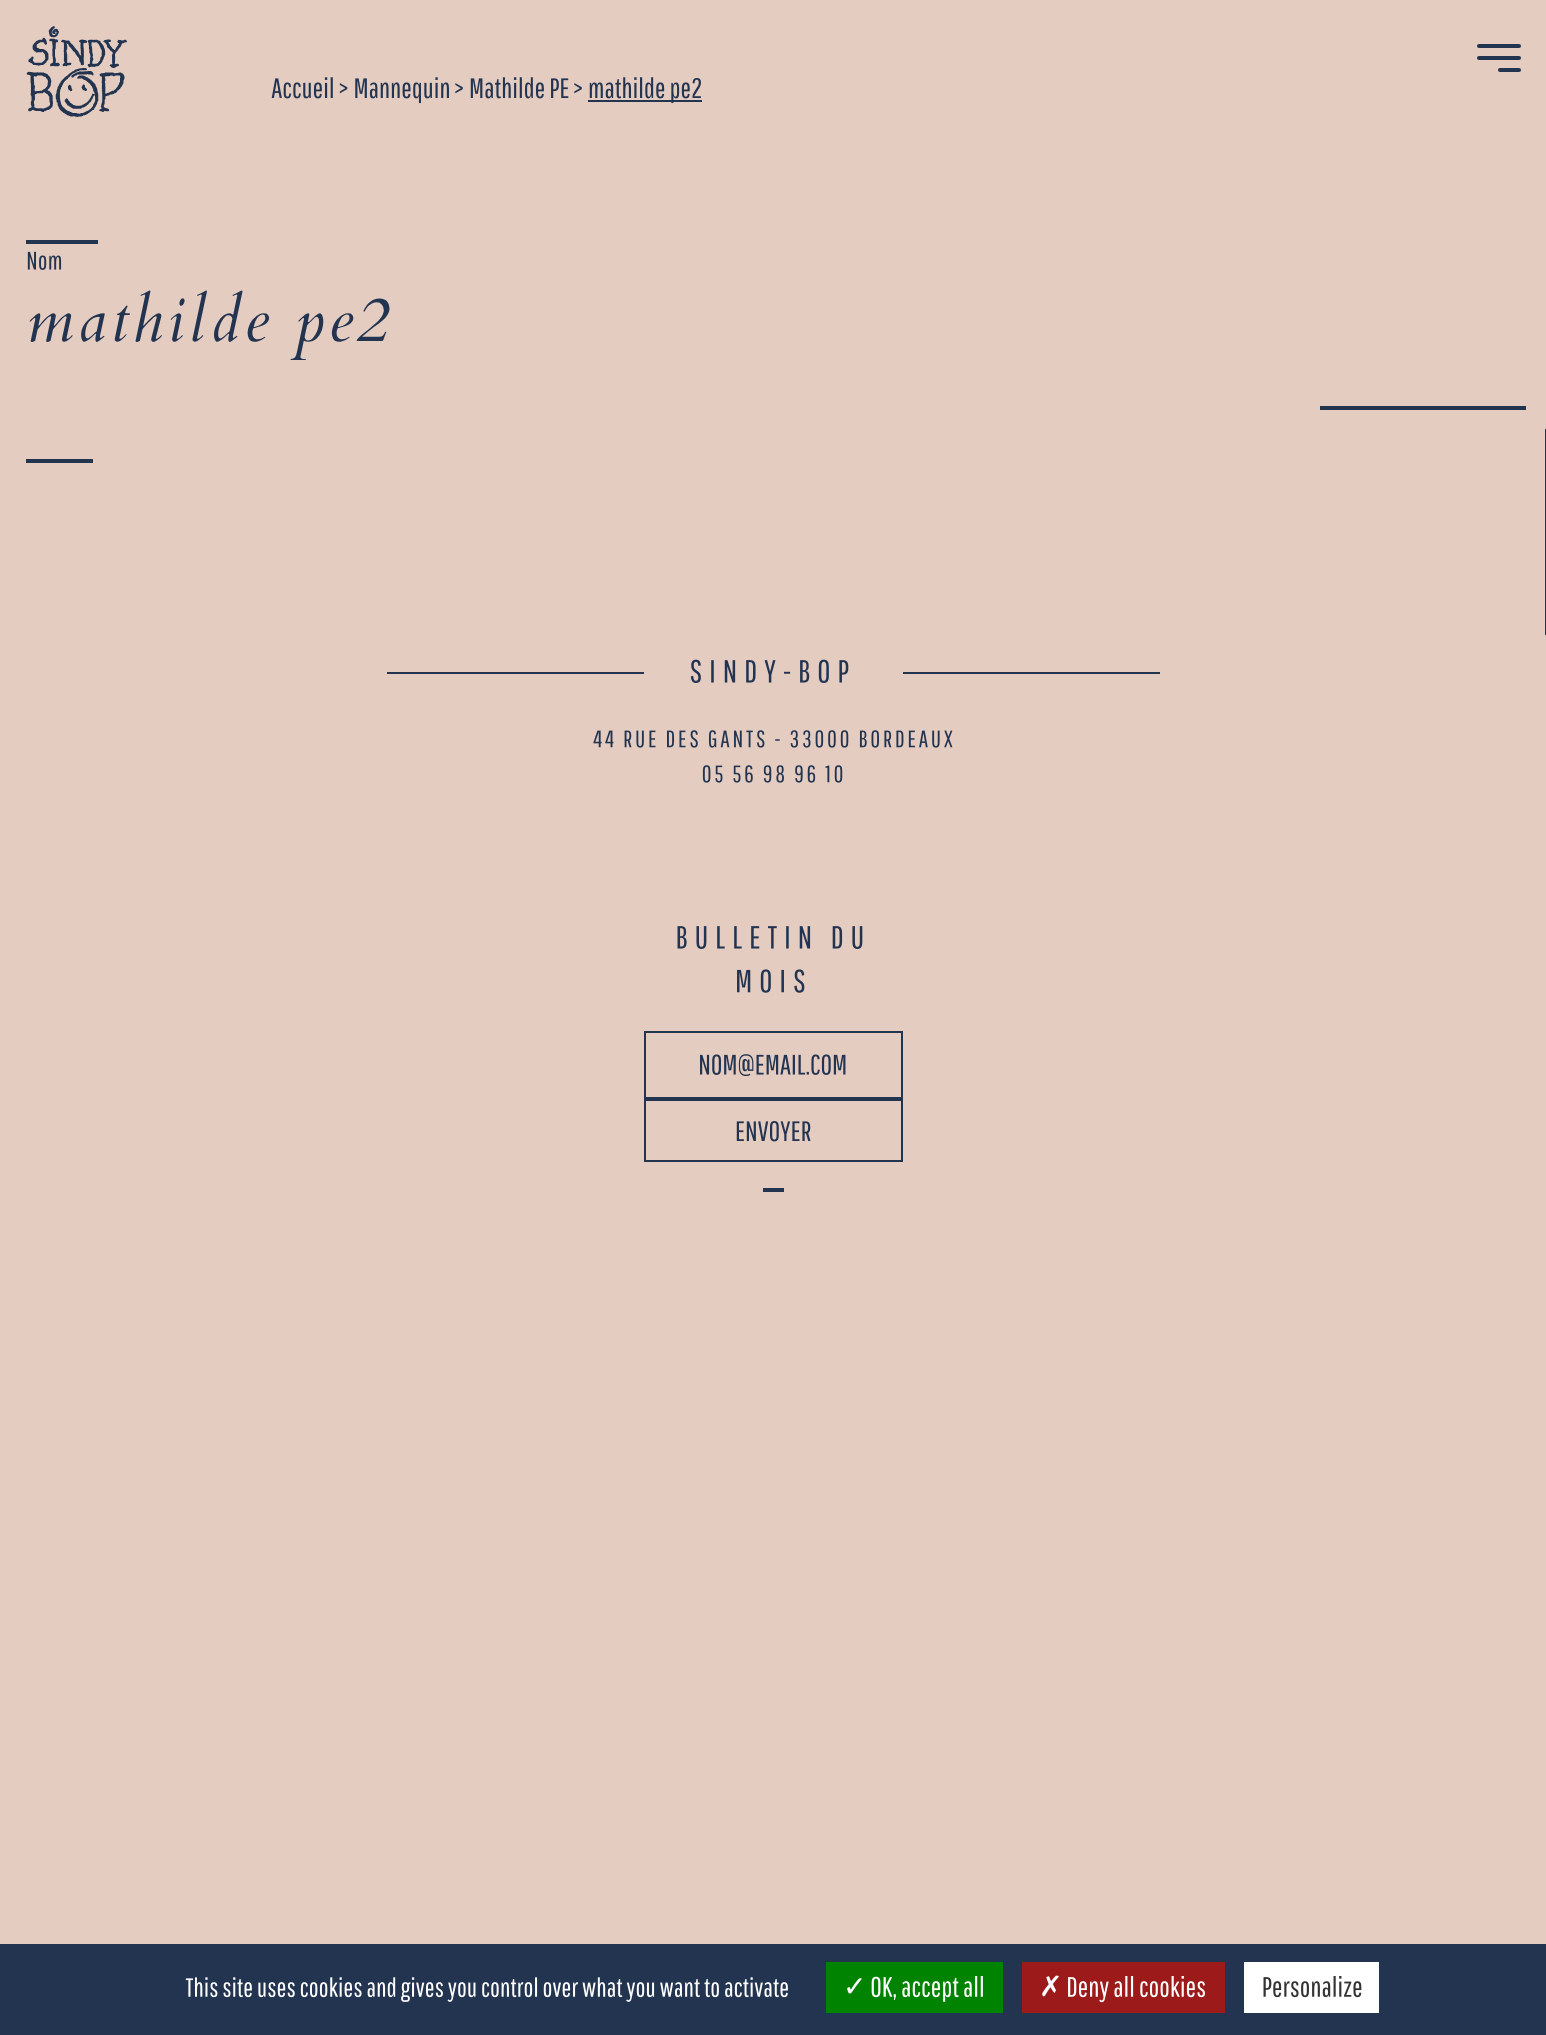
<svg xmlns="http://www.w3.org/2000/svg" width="1546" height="2035">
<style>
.a{font:italic 63px Cardo;letter-spacing:4.25px;fill:#233451}
.b{font:28px DejaVu Sans;fill:#fff}
</style>
<rect width="100%" height="100%" fill="#e4ccc0"/>
<image href="1.png" x="26" y="26" width="101" height="91"/>
<image href="2.png" x="271" y="77" width="62" height="22"/>
<image href="3.png" x="339" y="83" width="9" height="11"/>
<image href="4.png" x="355" y="77" width="94" height="27"/>
<image href="5.png" x="455" y="83" width="8" height="11"/>
<image href="6.png" x="470" y="77" width="99" height="22"/>
<image href="5.png" x="574" y="83" width="8" height="11"/>
<path fill="#233451" d="M588 100h114v2H588z"/>
<image href="7.png" x="589" y="77" width="112" height="27"/>
<rect fill="#233451" x="1477" y="44" width="44" height="4" rx="2"/>
<rect fill="#233451" x="1477" y="56" width="44" height="4" rx="2"/>
<rect fill="#233451" x="1498" y="68" width="23" height="4" rx="2"/>
<path fill="#233451" d="M26 240h72v4H26z"/>
<image href="8.png" x="27" y="251" width="35" height="19"/>
<path fill="#233451" d="M26 459h67v4H26z"/>
<path fill="#233451" d="M1320 406h206v4H1320z"/>
<path fill="#233451" d="M1545 429h1v206H1545z"/>
<path fill="#233451" d="M387 672h257v2H387z"/>
<image href="9.png" x="690" y="659" width="159" height="24"/>
<path fill="#233451" d="M903 672h257v2H903z"/>
<image href="10.png" x="593" y="730" width="360" height="18"/>
<image href="11.png" x="702" y="765" width="141" height="18"/>
<image href="12.png" x="677" y="926" width="186" height="23"/>
<image href="13.png" x="737" y="969" width="68" height="24"/>
<path fill="none" stroke="#233451" stroke-width="2" d="M645 1032h257v66H645z"/>
<image href="14.png" x="700" y="1054" width="146" height="22"/>
<path fill="none" stroke="#233451" stroke-width="2" d="M645 1100h257v61H645z"/>
<image href="15.png" x="736" y="1121" width="75" height="21"/>
<path fill="#233451" d="M763 1188h21v4H763z"/>
<path fill="#233451" d="M0 1944h1546v91H0z"/>
<image href="16.png" x="185" y="1977" width="603" height="25"/>
<path fill="#008300" d="M826 1962h177v51H826z"/>
<image href="17.png" x="871" y="1976" width="112" height="26"/>
<path fill="#9c1a1a" d="M1022 1962h203v51H1022z"/>
<image href="18.png" x="1068" y="1976" width="137" height="27"/>
<path fill="#fff" d="M1244 1962h135v51H1244z"/>
<image href="19.png" x="1263" y="1976" width="99" height="22"/>
<text class="a" x="26" y="341">mathilde pe2</text>
<text class="b" x="843" y="1996">✓</text>
<text class="b" x="1039" y="1996">✗</text>
</svg>
